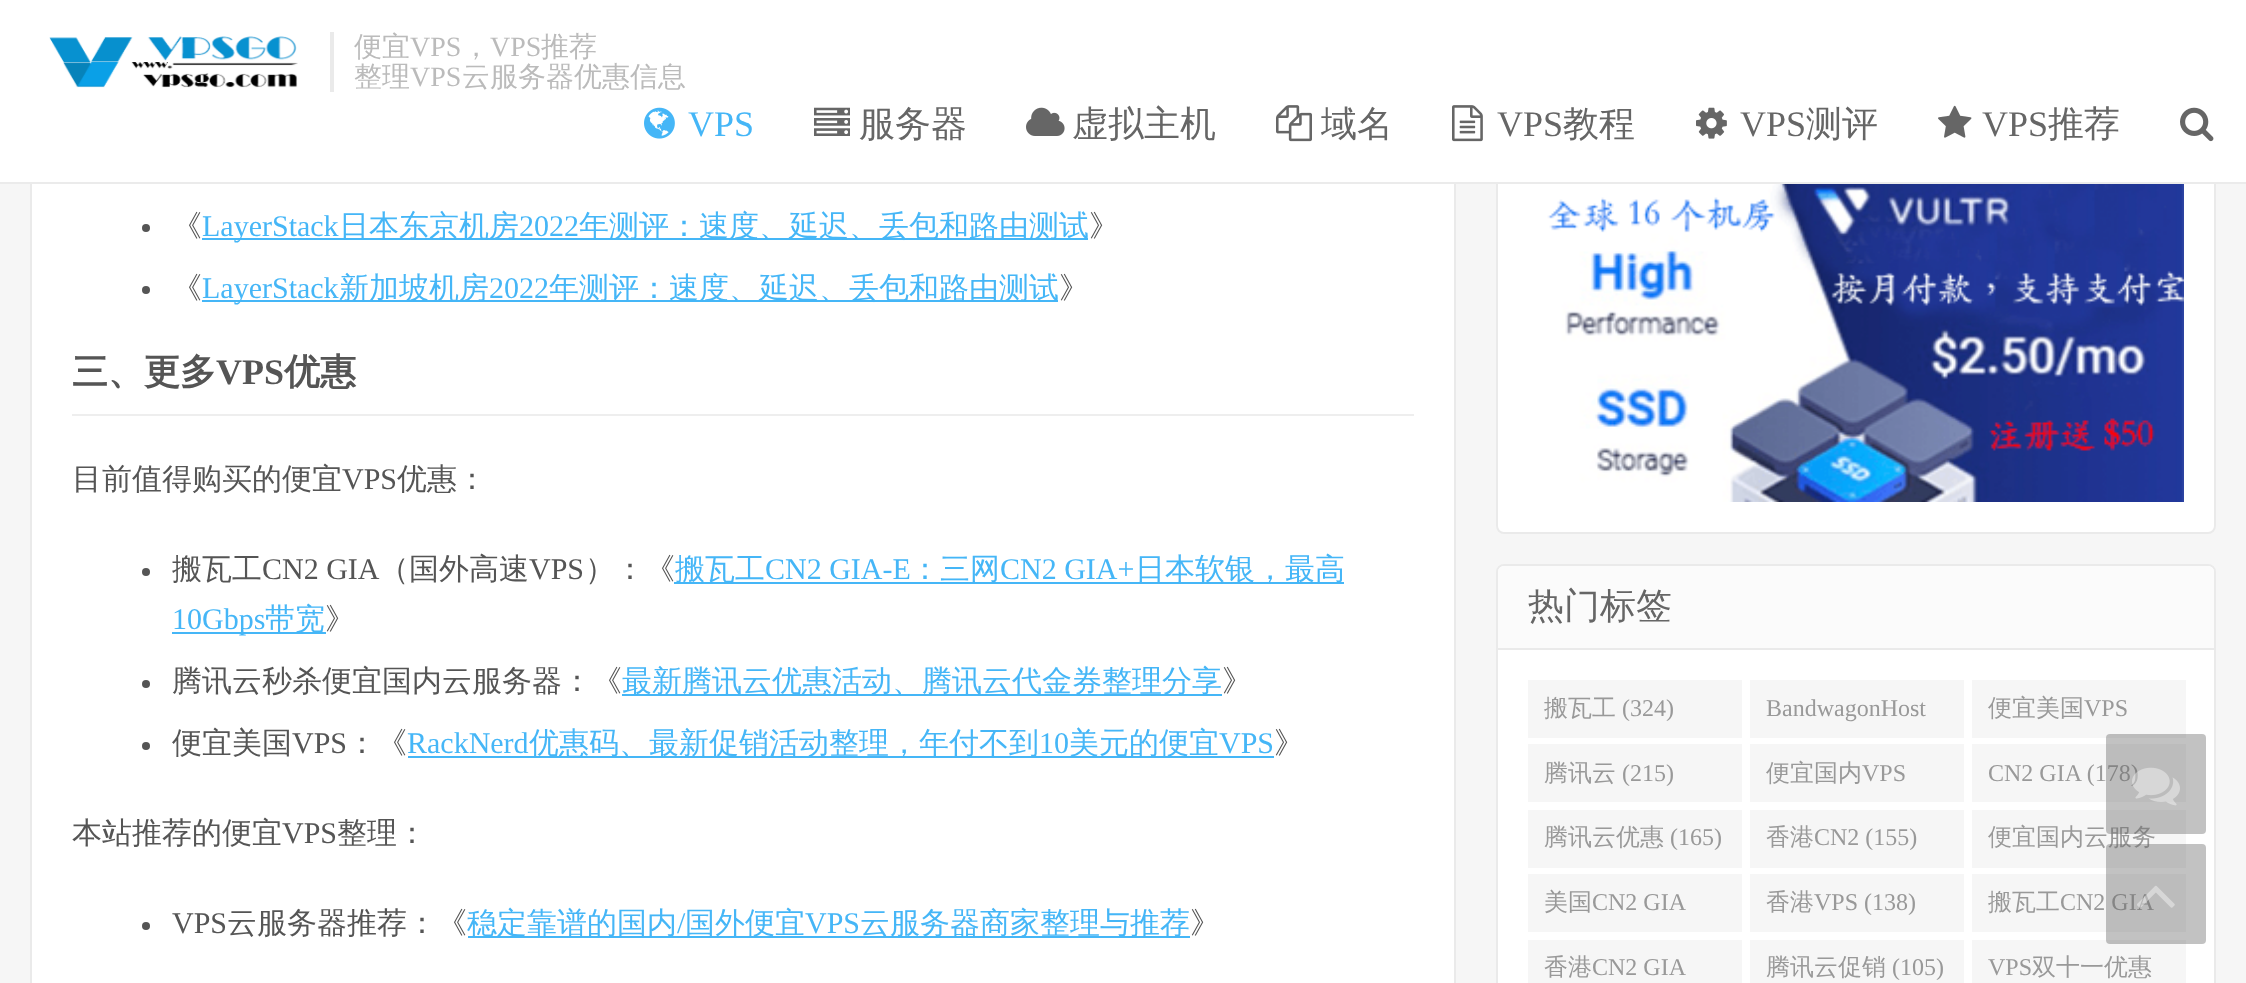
<svg xmlns="http://www.w3.org/2000/svg" width="2246" height="983">
<style>
.a{font:500 28px WenQuanYi Zen Hei;fill:#bbb}
.b{font:28px Liberation Serif;fill:#bbb}
.c{font:36px Liberation Serif;fill:#45b6f7}
.d{font:500 36px WenQuanYi Zen Hei;fill:#666}
.e{font:36px Liberation Serif;fill:#666}
.f{font:500 30px WenQuanYi Zen Hei;fill:#555}
.g{font:30px Liberation Serif;fill:#45b6f7}
.h{font:500 30px WenQuanYi Zen Hei;fill:#45b6f7}
.i{font:bold 36px WenQuanYi Zen Hei;fill:#555}
.j{font:bold 36px Liberation Serif;fill:#555}
.k{font:30px Liberation Serif;fill:#555}
.l{font:500 24px WenQuanYi Zen Hei;fill:#999}
.m{font:24px Liberation Serif;fill:#999}
</style>
<rect width="100%" height="100%" fill="#f6f6f6"/>
<path fill="#fff" d="M32 184h1422v799H32z"/>
<path fill="none" stroke="#eaeaea" stroke-width="2" d="M31 -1h1424v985H31z"/>
<rect fill="#fff" stroke="#eaeaea" stroke-width="2" x="1497" y="-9" width="718" height="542" rx="7"/>
<path fill="#fff" d="M0 0h2246v182H0z"/>
<path fill="#ebebeb" d="M0 182h2246v2H0z"/>
<image href="1.png" x="49" y="36" width="249" height="52"/>
<path fill="#eaeaea" d="M330 32h4v60H330z"/>
<image href="2.png" x="644" y="107" width="31" height="32"/>
<image href="3.png" x="814" y="107" width="36" height="29"/>
<image href="4.png" x="1026" y="107" width="39" height="29"/>
<image href="5.png" x="1276" y="105" width="36" height="37"/>
<image href="6.png" x="1452" y="105" width="31" height="37"/>
<image href="7.png" x="1696" y="107" width="31" height="32"/>
<image href="8.png" x="1938" y="105" width="34" height="33"/>
<image href="9.png" x="2180" y="107" width="34" height="35"/>
<circle fill="#555" cx="146" cy="228" r="4"/>
<path fill="#45b6f7" d="M202 238h886v2H202z"/>
<circle fill="#555" cx="146" cy="290" r="4"/>
<path fill="#45b6f7" d="M202 300h856v2H202z"/>
<path fill="#eee" d="M72 414h1342v2H72z"/>
<circle fill="#555" cx="146" cy="572" r="4"/>
<path fill="#45b6f7" d="M674 582h670v2H674z"/>
<path fill="#45b6f7" d="M172 632h154v2H172z"/>
<circle fill="#555" cx="146" cy="684" r="4"/>
<path fill="#45b6f7" d="M622 694h600v2H622z"/>
<circle fill="#555" cx="146" cy="746" r="4"/>
<path fill="#45b6f7" d="M408 756h866v2H408z"/>
<circle fill="#555" cx="146" cy="926" r="4"/>
<path fill="#45b6f7" d="M468 936h722v2H468z"/>
<image href="10.png" x="1547" y="184" width="637" height="318"/>
<rect fill="#fff" stroke="#eaeaea" stroke-width="2" x="1497" y="565" width="718" height="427" rx="7"/>
<path fill="#fbfbfb" d="M1504 566h704c3.5 0 6 2.5 6 6v78h-716v-78c0-3.5 2.5-6 6-6z"/>
<path fill="#eaeaea" d="M1498 648h716v2H1498z"/>
<path fill="#f6f6f6" d="M1528 680h214v58H1528z"/>
<path fill="#f6f6f6" d="M1750 680h214v58H1750z"/>
<path fill="#f6f6f6" d="M1972 680h214v58H1972z"/>
<path fill="#f6f6f6" d="M1528 744h214v58H1528z"/>
<path fill="#f6f6f6" d="M1750 744h214v58H1750z"/>
<path fill="#f6f6f6" d="M1972 744h214v58H1972z"/>
<path fill="#f6f6f6" d="M1528 810h214v58H1528z"/>
<path fill="#f6f6f6" d="M1750 810h214v58H1750z"/>
<path fill="#f6f6f6" d="M1972 810h214v58H1972z"/>
<path fill="#f6f6f6" d="M1528 874h214v58H1528z"/>
<path fill="#f6f6f6" d="M1750 874h214v58H1750z"/>
<path fill="#f6f6f6" d="M1972 874h214v58H1972z"/>
<path fill="#f6f6f6" d="M1528 940h214v43H1528z"/>
<path fill="#f6f6f6" d="M1750 940h214v43H1750z"/>
<path fill="#f6f6f6" d="M1972 940h214v43H1972z"/>
<text class="a" x="354" y="56">便宜</text>
<text class="b" x="410" y="56">VPS</text>
<text class="a" x="462" y="56">，</text>
<text class="b" x="490" y="56">VPS</text>
<text class="a" x="541" y="56">推荐</text>
<text class="a" x="354" y="86">整理</text>
<text class="b" x="410" y="86">VPS</text>
<text class="a" x="462" y="86">云服务器优惠信息</text>
<text class="c" x="688" y="136">VPS</text>
<text class="d" x="859" y="136">服务器</text>
<text class="d" x="1072" y="136">虚拟主机</text>
<text class="d" x="1321" y="136">域名</text>
<text class="e" x="1497" y="136">VPS</text>
<text class="d" x="1563" y="136">教程</text>
<text class="e" x="1740" y="136">VPS</text>
<text class="d" x="1806" y="136">测评</text>
<text class="e" x="1982" y="136">VPS</text>
<text class="d" x="2048" y="136">推荐</text>
<text class="f" x="172" y="236">《</text>
<text class="g" x="202" y="236">LayerStack</text>
<text class="h" x="339" y="236">日本东京机房</text>
<text class="g" x="519" y="236">2022</text>
<text class="h" x="579" y="236">年测评：速度、延迟、丢包和路由测试</text>
<text class="f" x="1089" y="236">》</text>
<text class="f" x="172" y="298">《</text>
<text class="g" x="202" y="298">LayerStack</text>
<text class="h" x="339" y="298">新加坡机房</text>
<text class="g" x="489" y="298">2022</text>
<text class="h" x="549" y="298">年测评：速度、延迟、丢包和路由测试</text>
<text class="f" x="1059" y="298">》</text>
<text class="i" x="72" y="384">三、更多</text>
<text class="j" x="216" y="384">VPS</text>
<text class="i" x="284" y="384">优惠</text>
<text class="f" x="72" y="489">目前值得购买的便宜</text>
<text class="k" x="342" y="489">VPS</text>
<text class="f" x="397" y="489">优惠：</text>
<text class="f" x="172" y="579">搬瓦工</text>
<text class="k" x="262" y="579">CN2 GIA</text>
<text class="f" x="379" y="579">（国外高速</text>
<text class="k" x="529" y="579">VPS</text>
<text class="f" x="585" y="579">）：《</text>
<text class="h" x="675" y="579">搬瓦工</text>
<text class="g" x="765" y="579">CN2 GIA-E</text>
<text class="h" x="910" y="579">：三网</text>
<text class="g" x="1000" y="579">CN2 GIA+</text>
<text class="h" x="1135" y="579">日本软银，最高</text>
<text class="g" x="172" y="629">10Gbps</text>
<text class="h" x="265" y="629">带宽</text>
<text class="f" x="325" y="629">》</text>
<text class="f" x="172" y="691">腾讯云秒杀便宜国内云服务器：《</text>
<text class="h" x="622" y="691">最新腾讯云优惠活动、腾讯云代金券整理分享</text>
<text class="f" x="1222" y="691">》</text>
<text class="f" x="172" y="753">便宜美国</text>
<text class="k" x="292" y="753">VPS</text>
<text class="f" x="347" y="753">：《</text>
<text class="g" x="407" y="753">RackNerd</text>
<text class="h" x="529" y="753">优惠码、最新促销活动整理，年付不到</text>
<text class="g" x="1039" y="753">10</text>
<text class="h" x="1069" y="753">美元的便宜</text>
<text class="g" x="1219" y="753">VPS</text>
<text class="f" x="1274" y="753">》</text>
<text class="f" x="72" y="843">本站推荐的便宜</text>
<text class="k" x="282" y="843">VPS</text>
<text class="f" x="337" y="843">整理：</text>
<text class="k" x="172" y="933">VPS</text>
<text class="f" x="227" y="933">云服务器推荐：《</text>
<text class="h" x="467" y="933">稳定靠谱的国内</text>
<text class="g" x="677" y="933">/</text>
<text class="h" x="685" y="933">国外便宜</text>
<text class="g" x="805" y="933">VPS</text>
<text class="h" x="860" y="933">云服务器商家整理与推荐</text>
<text class="f" x="1190" y="933">》</text>
<text class="d" x="1528" y="618">热门标签</text>
<text class="l" x="1544" y="716">搬瓦工</text>
<text class="m" x="1622" y="716">(324)</text>
<text class="m" x="1766" y="716">BandwagonHost</text>
<text class="l" x="1988" y="716">便宜美国</text>
<text class="m" x="2084" y="716">VPS</text>
<text class="l" x="1544" y="781">腾讯云</text>
<text class="m" x="1622" y="781">(215)</text>
<text class="l" x="1766" y="781">便宜国内</text>
<text class="m" x="1862" y="781">VPS</text>
<text class="m" x="1988" y="781">CN2 GIA (178)</text>
<text class="l" x="1544" y="845">腾讯云优惠</text>
<text class="m" x="1670" y="845">(165)</text>
<text class="l" x="1766" y="845">香港</text>
<text class="m" x="1814" y="845">CN2 (155)</text>
<text class="l" x="1988" y="845">便宜国内云服务</text>
<text class="l" x="1544" y="910">美国</text>
<text class="m" x="1592" y="910">CN2 GIA</text>
<text class="l" x="1766" y="910">香港</text>
<text class="m" x="1814" y="910">VPS (138)</text>
<text class="l" x="1988" y="910">搬瓦工</text>
<text class="m" x="2060" y="910">CN2 GIA</text>
<text class="l" x="1544" y="975">香港</text>
<text class="m" x="1592" y="975">CN2 GIA</text>
<text class="l" x="1766" y="975">腾讯云促销</text>
<text class="m" x="1892" y="975">(105)</text>
<text class="m" x="1988" y="975">VPS</text>
<text class="l" x="2032" y="975">双十一优惠</text>
<rect fill="#66666666" x="2106" y="734" width="100" height="100" rx="4"/>
<image href="11.png" x="2132" y="767" width="48" height="39"/>
<rect fill="#66666666" x="2106" y="844" width="100" height="100" rx="4"/>
<image href="12.png" x="2137" y="885" width="38" height="23"/>
</svg>
